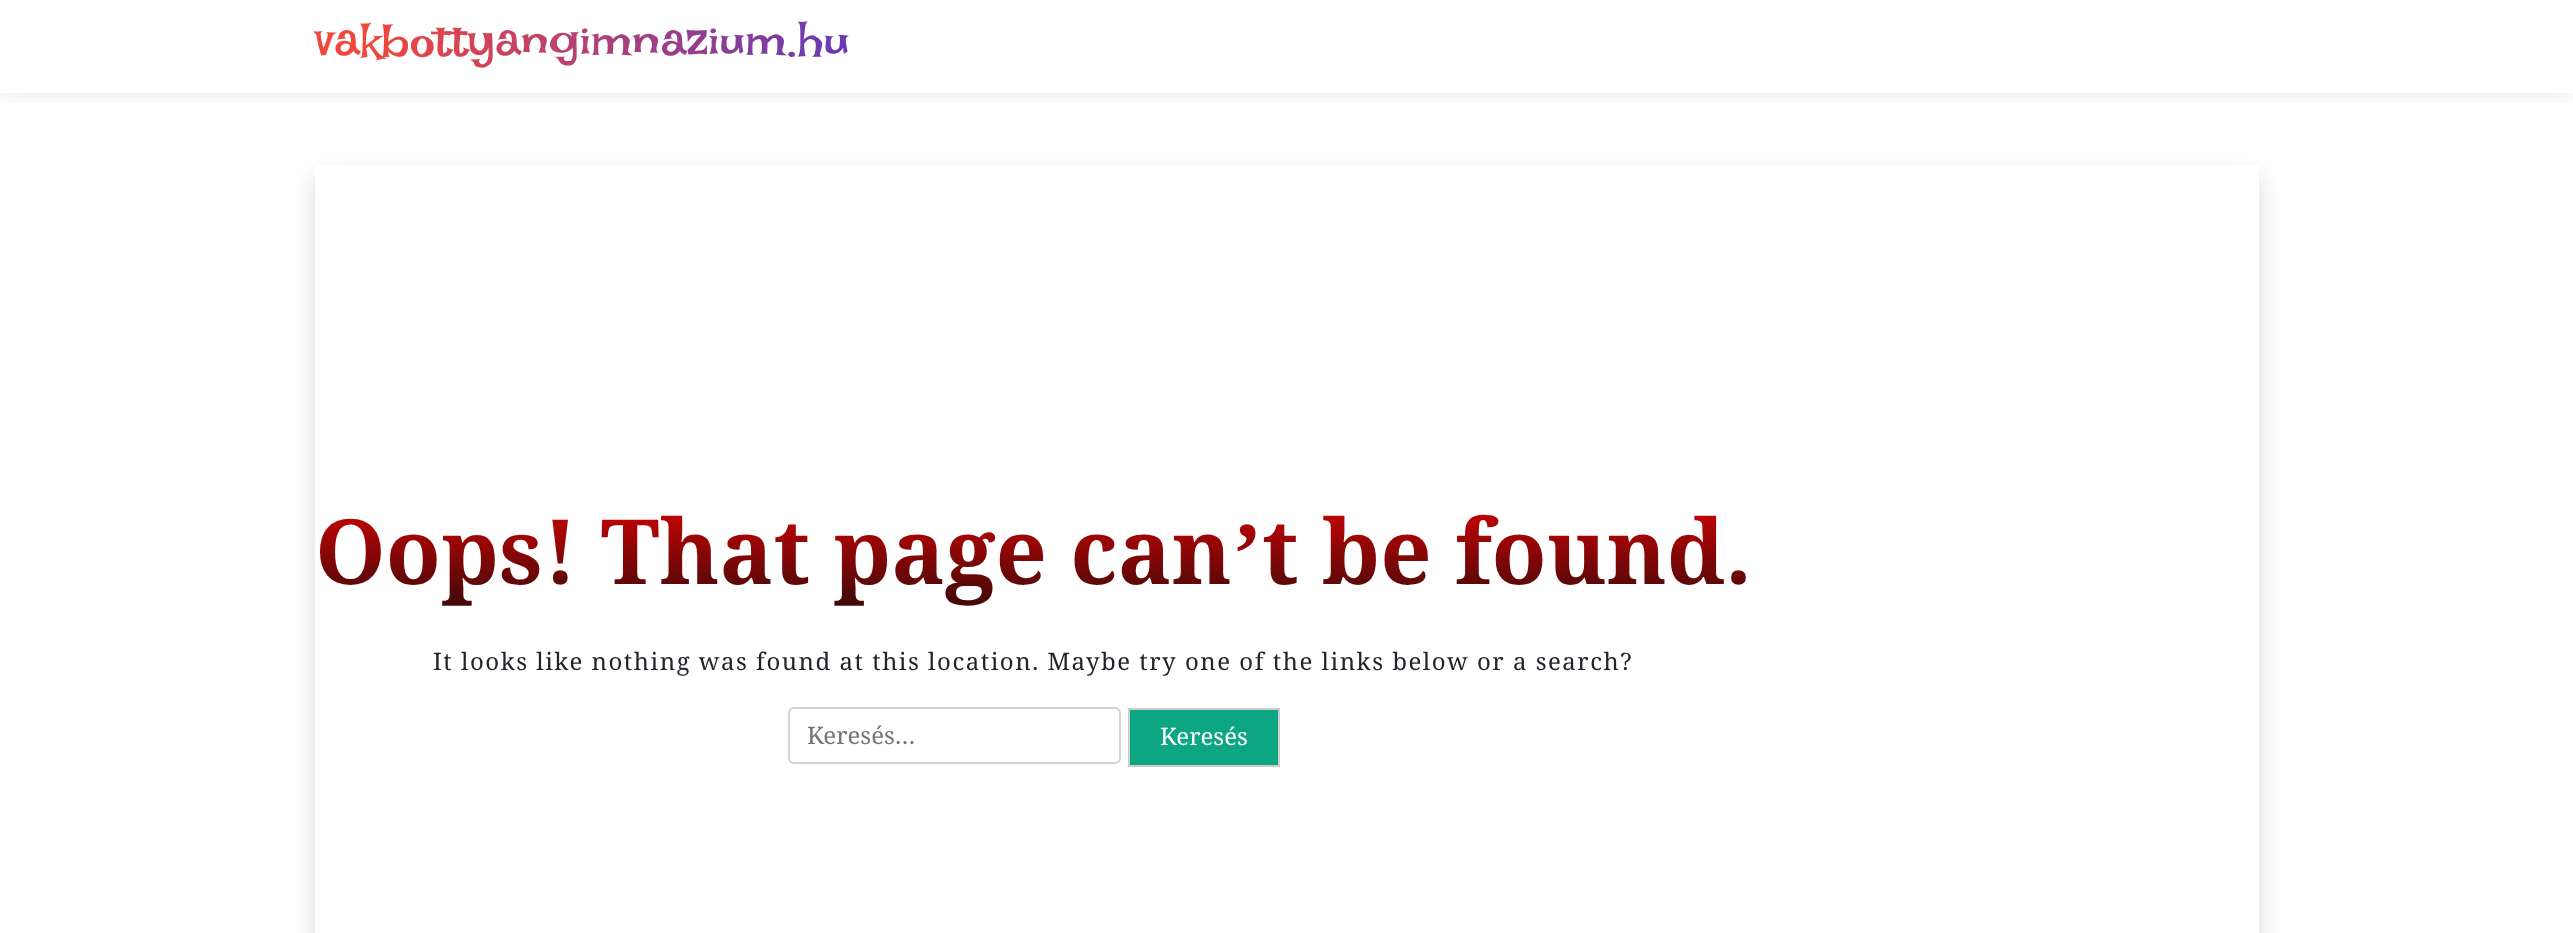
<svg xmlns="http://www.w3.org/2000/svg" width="2573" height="933">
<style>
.a{font:48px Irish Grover;fill:url(#g1)}
.b{font:bold 90px Koh Santepheap;fill:url(#g2)}
.c{font:bold 90px Liberation Serif;fill:url(#g2)}
.d{font:24px Noto Serif;letter-spacing:1.5px;fill:#212529}
.e{font:24px Noto Serif;fill:#757575}
.f{font:24px Noto Serif;fill:#fff}
</style>
<defs>
<clipPath id="clip1"><path d="M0 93h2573v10H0z"/></clipPath>
<clipPath id="clip2"><path d="M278 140h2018v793h-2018zm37 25h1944v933h-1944z" clip-rule="evenodd"/></clipPath>
<linearGradient id="g1" gradientUnits="userSpaceOnUse" x1="315" y1="41" x2="849" y2="41"><stop offset="0.1" stop-color="#f0473c"/><stop offset="1" stop-color="#673ab7"/></linearGradient>
<linearGradient id="g2" gradientUnits="userSpaceOnUse" x1="1033" y1="497" x2="1033" y2="605"><stop offset="0" stop-color="#d60303"/><stop offset="1" stop-color="#410909"/></linearGradient>
</defs>
<rect width="100%" height="100%" fill="#fff"/>
<g clip-path="url(#clip1)">
<path fill="#11111a1a" filter="blur(12px)" d="M0 0h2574v93H0z"/>
</g>
<g clip-path="url(#clip2)">
<path fill="#00000026" filter="blur(12px)" d="M315 177h1944v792H315z"/>
</g>
<rect fill="none" stroke="#ced4da" stroke-width="2" x="789" y="708" width="331" height="55" rx="5"/>
<path fill="#0ca683" stroke="#ccc" stroke-width="2" d="M1129 709h150v57H1129z"/>
<text class="a" x="315" y="57">vakbottyangimnazium.hu</text>
<text class="b" x="315" y="584">Oops! That page can</text>
<text class="c" x="1232" y="584">’</text>
<text class="b" x="1262" y="584">t be found.</text>
<text class="d" x="433" y="670">It looks like nothing was found at this location. Maybe try one of the links below or a search?</text>
<text class="e" x="807" y="744">Keresés…</text>
<text class="f" x="1160" y="745">Keresés</text>
</svg>
